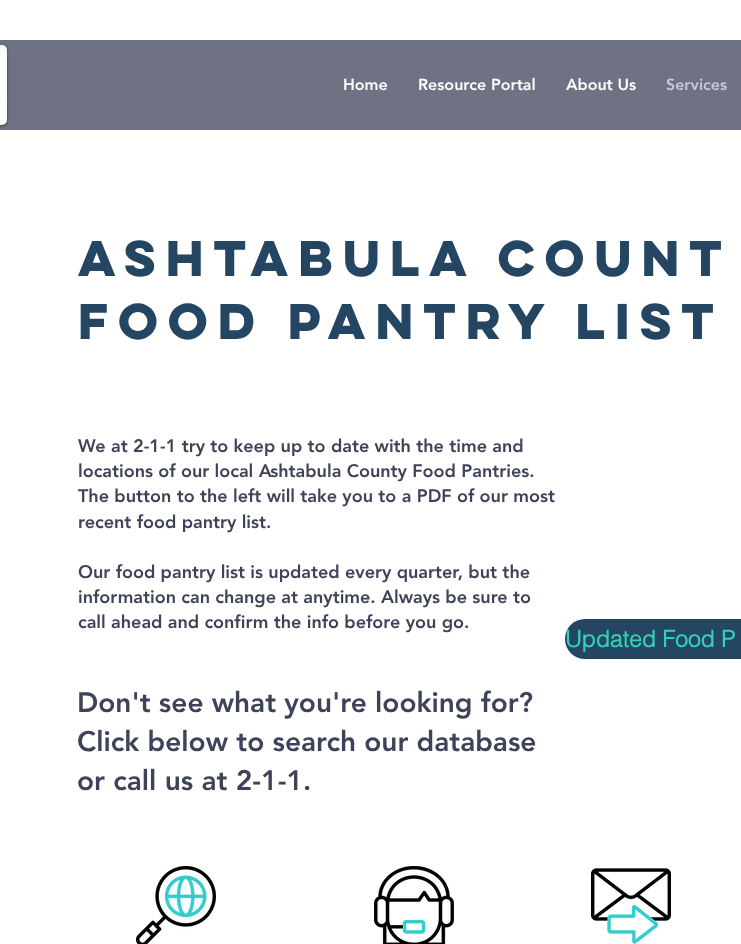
<svg xmlns="http://www.w3.org/2000/svg" width="741" height="944">
<style>
.a{font:900 16px 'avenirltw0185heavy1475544';fill:#fff}
.b{font:900 16px 'avenirltw0185heavy1475544';fill:#c6c8d5}
.c{font:bold 45px 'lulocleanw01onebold';fill:#244662}
.d{font:900 18px 'avenirltw0185heavy1475544';fill:#3f4359}
.e{font:bold 23px helvetica;fill:#34d1b6}
.f{font:900 28px 'avenirltw0185heavy1475544';fill:#3f4359}
</style>
<rect width="100%" height="100%" fill="#fff"/>
<path fill="#6f7283" d="M0 40h741v90H0z"/>
<rect fill="#00000080" filter="blur(1.5px)" x="-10" y="46" width="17" height="80" rx="5"/>
<rect fill="#fff" stroke="#fff" stroke-width="2" x="-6" y="46" width="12" height="78" rx="4"/>
<path fill="#e9f0f6" d="M0 96h1v1H0z"/>
<rect fill="#244662" x="565" y="619" width="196" height="40" rx="20"/>
<image href="1.png" x="136" y="866" width="80" height="78"/>
<image href="2.png" x="374" y="866" width="80" height="78"/>
<image href="3.png" x="591" y="868" width="80" height="76"/>
<text class="a" x="343" y="90">Home</text>
<text class="a" x="418" y="90">Resource Portal</text>
<text class="a" x="566" y="90">About Us</text>
<text class="b" x="666" y="90">Services</text>
<text class="c" x="78" y="276">Ashtabula Count</text>
<text class="c" x="78" y="339">Food Pantry List</text>
<text class="d" x="78" y="452">We at 2-1-1 try to keep up to date with the time and</text>
<text class="d" x="78" y="477">locations of our local Ashtabula County Food Pantries.</text>
<text class="d" x="78" y="502">The button to the left will take you to a PDF of our most</text>
<text class="d" x="78" y="528">recent food pantry list.</text>
<text class="d" x="78" y="578">Our food pantry list is updated every quarter, but the</text>
<text class="d" x="78" y="603">information can change at anytime. Always be sure to</text>
<text class="d" x="78" y="628">call ahead and confirm the info before you go.</text>
<text class="e" x="565" y="647">Updated Food P</text>
<text class="f" x="77" y="712">Don't see what you're looking for?</text>
<text class="f" x="77" y="751">Click below to search our database</text>
<text class="f" x="77" y="790">or call us at 2-1-1.</text>
</svg>
